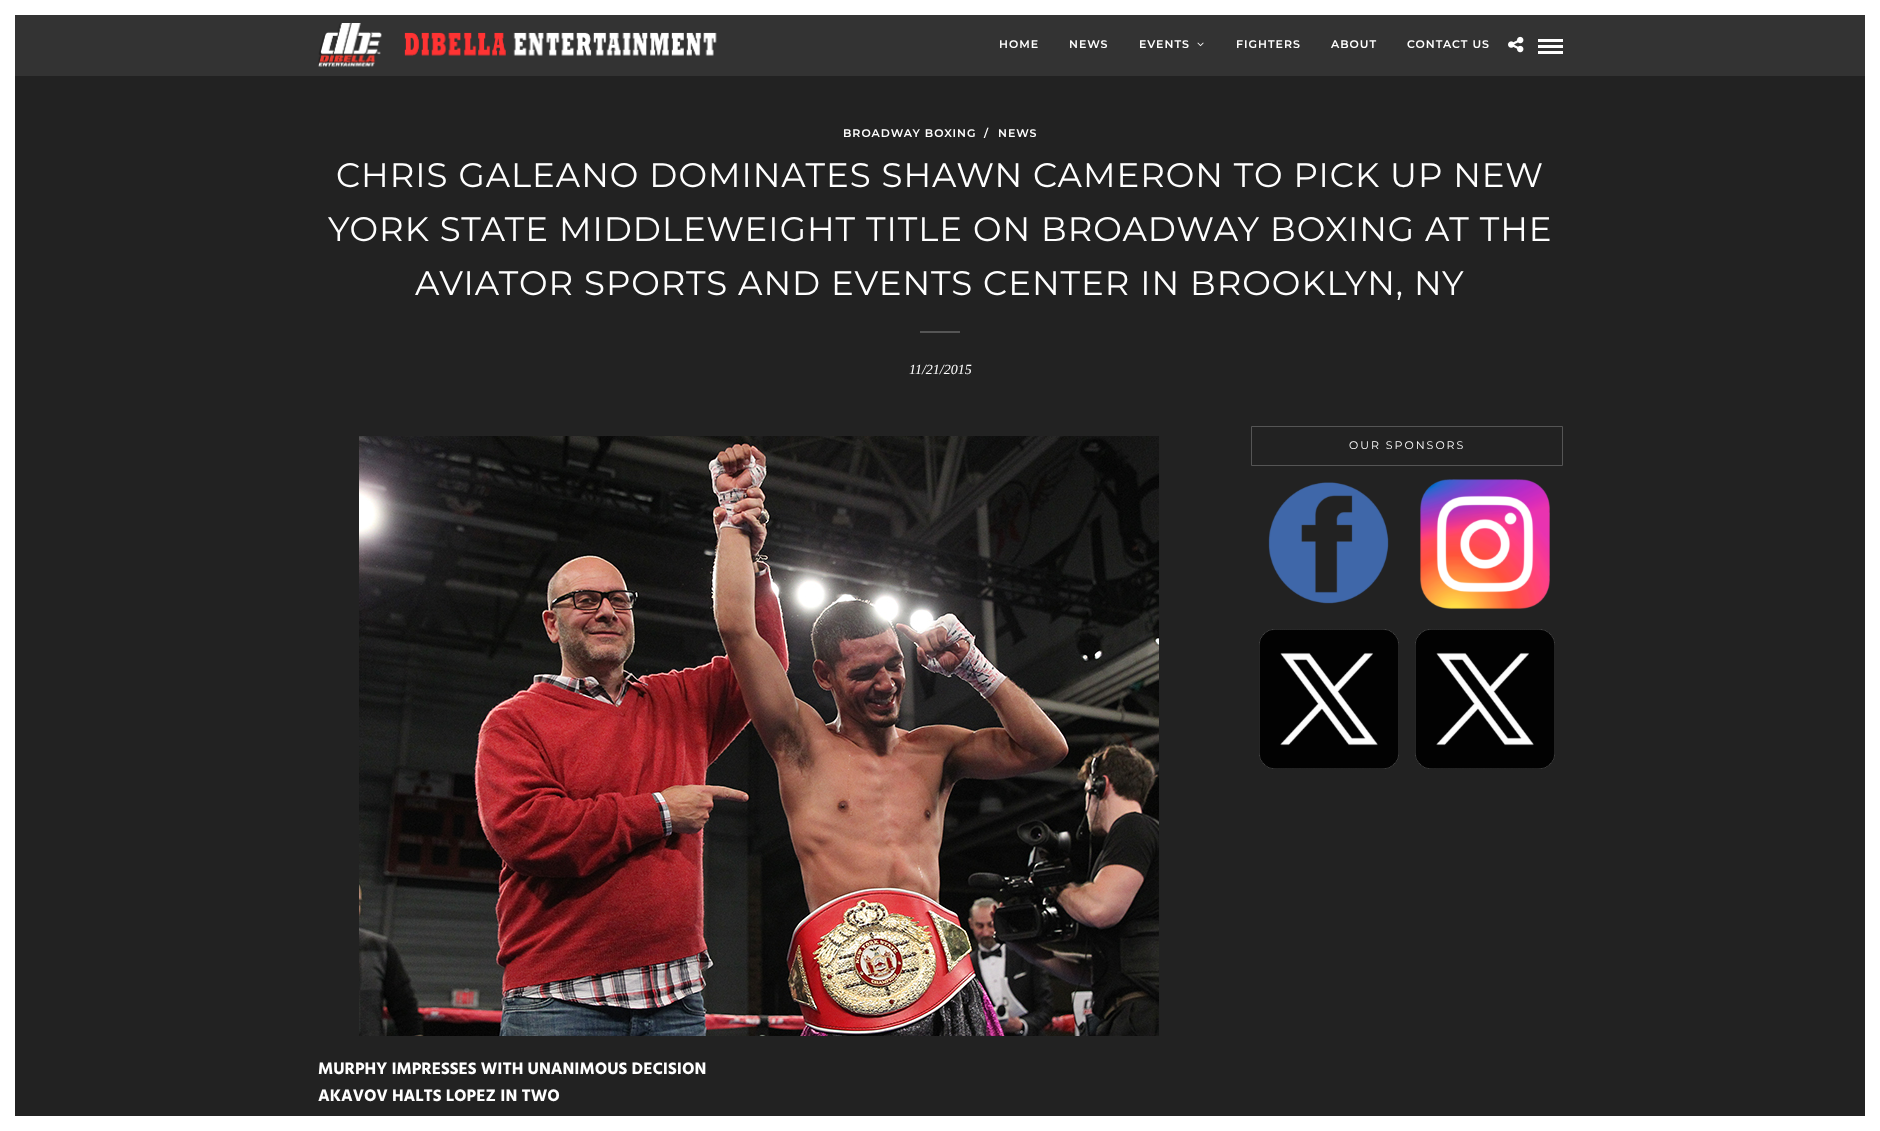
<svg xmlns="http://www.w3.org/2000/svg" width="1880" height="1131">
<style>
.a{font:600 11px Montserrat;letter-spacing:1px;fill:#fff}
.b{font:34px Montserrat;letter-spacing:1px;fill:#fff}
.c{font:italic 14px Liberation Serif;fill:#fff}
.d{font:11px Montserrat;letter-spacing:2px;fill:#fff}
.e{font:bold 17px Hind;fill:#fff}
</style>
<rect width="100%" height="100%" fill="#222"/>
<path fill="#fff" d="M0 0h15v1131H0z"/>
<path fill="#fff" d="M15 0h1850v15H15z"/>
<path fill="#fff" d="M1865 0h15v1131H1865z"/>
<path fill="#333" d="M15 15h1850v61H15z"/>
<image href="1.png" x="318" y="23" width="399" height="44"/>
<image href="2.png" x="1197" y="42" width="7" height="5"/>
<image href="3.png" x="1508" y="36" width="16" height="17"/>
<path fill="#fff" d="M1538 39h25v3H1538z"/>
<path fill="#fff" d="M1538 45h25v3H1538z"/>
<path fill="#fff" d="M1538 51h25v3H1538z"/>
<path fill="#555" d="M920 331h40v2H920z"/>
<path fill="none" stroke="#555" d="M1251.5 426.5h311v39H1251.5z"/>
<image href="4.png" x="1268" y="482" width="121" height="122"/>
<image href="5.png" x="1420" y="479" width="130" height="130"/>
<image href="6.png" x="1259" y="629" width="140" height="140"/>
<image href="7.png" x="1415" y="629" width="140" height="140"/>
<image href="8.png" x="359" y="436" width="800" height="600"/>
<path fill="#fff" d="M15 1116h1850v15H15z"/>
<text class="a" x="999" y="48">HOME</text>
<text class="a" x="1069" y="48">NEWS</text>
<text class="a" x="1139" y="48">EVENTS</text>
<text class="a" x="1236" y="48">FIGHTERS</text>
<text class="a" x="1331" y="48">ABOUT</text>
<text class="a" x="1407" y="48">CONTACT US</text>
<text class="a" x="843" y="137">BROADWAY BOXING</text>
<text class="a" x="984" y="137">/</text>
<text class="a" x="998" y="137">NEWS</text>
<text class="b" x="336" y="187">CHRIS GALEANO DOMINATES SHAWN CAMERON TO PICK UP NEW</text>
<text class="b" x="328" y="241">YORK STATE MIDDLEWEIGHT TITLE ON BROADWAY BOXING AT THE</text>
<text class="b" x="415" y="295">AVIATOR SPORTS AND EVENTS CENTER IN BROOKLYN, NY</text>
<text class="c" x="909" y="374">11/21/2015</text>
<text class="d" x="1349" y="449">OUR SPONSORS</text>
<text class="e" x="318" y="1074">MURPHY IMPRESSES WITH UNANIMOUS DECISION</text>
<text class="e" x="318" y="1101">AKAVOV HALTS LOPEZ IN TWO</text>
</svg>
